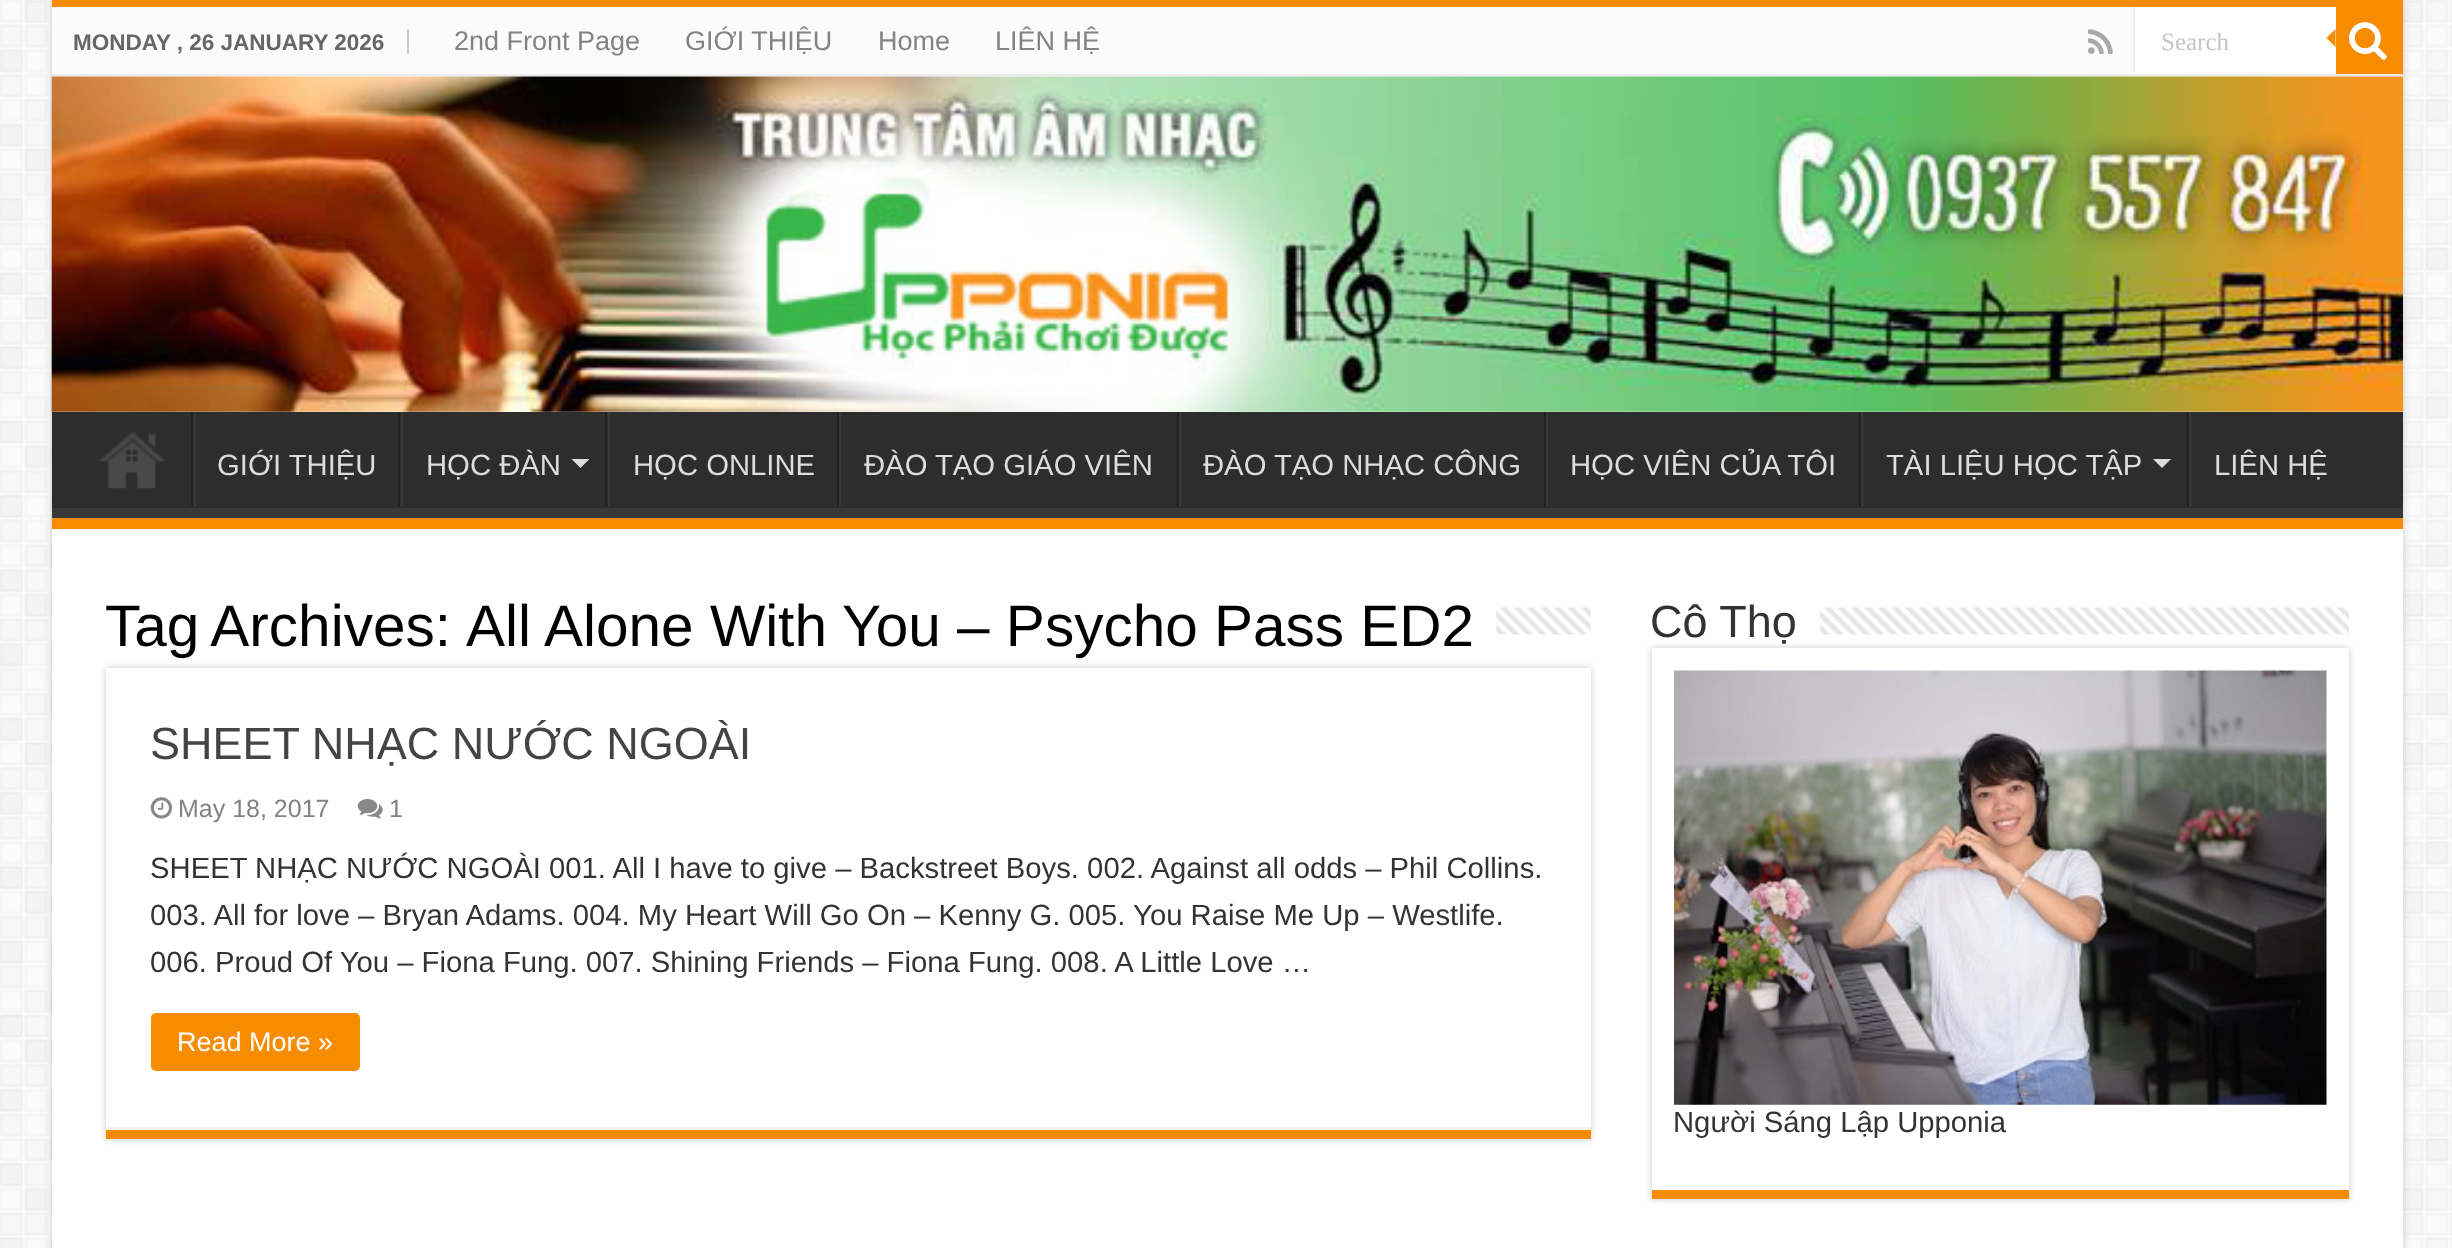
<svg xmlns="http://www.w3.org/2000/svg" width="2452" height="1248">
<style>
.a{font:bold 22.5px Liberation Sans;fill:#666}
.b{font:27px Liberation Sans;fill:#838383}
.c{font:25px Liberation Serif;fill:#c5c5c5}
.d{font:29.25px Liberation Sans;fill:#ddd}
.e{font:58.5px Liberation Sans;fill:#000}
.f{font:45px Liberation Sans;fill:#444}
.g{font:25px Liberation Sans;fill:#838383}
.h{font:29.25px Liberation Sans;fill:#333}
.i{font:27px Liberation Sans;fill:#fff}
.j{font:45px Liberation Sans;fill:#333}
</style>
<defs>
<clipPath id="clip1"><path d="M52 412h2351v106H52z"/></clipPath>
<clipPath id="clip2"><path d="M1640 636h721v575h-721zm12 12h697v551h-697z" clip-rule="evenodd"/></clipPath>
<clipPath id="clip3"><path d="M106 585h1485v83H106z"/></clipPath>
</defs>
<rect width="100%" height="100%" fill="#fff"/>
<image href="1.png" x="0" y="0" width="2452" height="1248"/>
<path fill="#cacaca" filter="blur(3.5px)" d="M52 0h2351v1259H52z"/>
<path fill="#fff" d="M52 411h2351v837H52z"/>
<path fill="#f88c00" d="M52 0h2351v7H52z"/>
<path fill="#fbfbfb" d="M52 7h2351v70H52z"/>
<path fill="#ececec" d="M52 74h2351v2H52z"/>
<path fill="#ccc" d="M407 29h2v25H407z"/>
<image href="2.png" x="2088" y="29" width="25" height="25"/>
<path fill="#fff" d="M2135 7h201v65H2135z"/>
<path fill="#ececec" d="M2133 7h2v65H2133z"/>
<path fill="#f88c00" d="M2336 7h67v67H2336z"/>
<image href="3.png" x="2349" y="22" width="38" height="38"/>
<path fill="#f88c00" d="M2335.5 29v18l-9-9z"/>
<image href="4.png" x="51" y="76" width="2352" height="336"/>
<path fill="#2d2d2d" d="M52 412h2351v96H52z"/>
<g clip-path="url(#clip1)">
<path fill="#393939" fill-rule="evenodd" d="M-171 189h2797v551h-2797zm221 209h2351c1 0 2 1 2 2v106c0 1-1 2-2 2h-2351c-2 0-3-1-3-2v-106c0-1 1-2 3-2z"/>
</g>
<path fill="#f88c00" d="M52 518h2351v11H52z"/>
<image href="5.png" x="99" y="431" width="66" height="58"/>
<path fill="#222" d="M191 412h2v94H191z"/>
<path fill="#383838" d="M194 412h2v94H194z"/>
<path fill="#222" d="M398 412h2v94H398z"/>
<path fill="#383838" d="M401 412h2v94H401z"/>
<path fill="#ddd" d="M571.5 459h18l-9 9z"/>
<path fill="#222" d="M605 412h2v94H605z"/>
<path fill="#383838" d="M608 412h2v94H608z"/>
<path fill="#222" d="M837 412h2v94H837z"/>
<path fill="#383838" d="M839 412h2v94H839z"/>
<path fill="#222" d="M1177 412h2v94H1177z"/>
<path fill="#383838" d="M1179 412h2v94H1179z"/>
<path fill="#222" d="M1544 412h2v94H1544z"/>
<path fill="#383838" d="M1546 412h2v94H1546z"/>
<path fill="#222" d="M1859 412h2v94H1859z"/>
<path fill="#383838" d="M1861 412h2v94H1861z"/>
<path fill="#ddd" d="M2153 459h18l-9 9z"/>
<path fill="#222" d="M2187 412h2v94H2187z"/>
<path fill="#383838" d="M2189 412h2v94H2189z"/>
<image href="6.png" x="1496" y="607" width="95" height="28"/>
<path fill="#cacaca" filter="blur(3.5px)" d="M106 668h1485v471H106z"/>
<path fill="#fff" d="M106 668h1485v462H106z"/>
<path fill="#f88c00" d="M106 1130h1485v9H106z"/>
<path fill="#f2f2f2" d="M106 1127h1485v2H106z"/>
<image href="7.png" x="150" y="797" width="23" height="22"/>
<image href="8.png" x="357" y="799" width="26" height="20"/>
<rect fill="#f88c00" x="151" y="1013" width="209" height="58" rx="5"/>
<image href="9.png" x="1820" y="607" width="529" height="28"/>
<g clip-path="url(#clip2)">
<path fill="#cacaca" filter="blur(3.5px)" d="M1652 648h697v551H1652z"/>
</g>
<path fill="#f88c00" d="M1652 1190h697v9H1652z"/>
<image href="10.png" x="1674" y="670" width="653" height="435"/>
<text class="a" x="73" y="50">MONDAY , 26 JANUARY 2026</text>
<text class="b" x="454" y="50">2nd Front Page</text>
<text class="b" x="685" y="50">GIỚI THIỆU</text>
<text class="b" x="878" y="50">Home</text>
<text class="b" x="995" y="50">LIÊN HỆ</text>
<text class="c" x="2161" y="50">Search</text>
<text class="d" x="217" y="475">GIỚI THIỆU</text>
<text class="d" x="426" y="475">HỌC ĐÀN</text>
<text class="d" x="633" y="475">HỌC ONLINE</text>
<text class="d" x="864" y="475">ĐÀO TẠO GIÁO VIÊN</text>
<text class="d" x="1203" y="475">ĐÀO TẠO NHẠC CÔNG</text>
<text class="d" x="1570" y="475">HỌC VIÊN CỦA TÔI</text>
<text class="d" x="1886" y="475">TÀI LIỆU HỌC TẬP</text>
<text class="d" x="2214" y="475">LIÊN HỆ</text>
<g clip-path="url(#clip3)">
<text class="e" x="105" y="646" word-spacing="-2">Tag Archives:</text>
</g>
<text class="e" x="466" y="646">All Alone With You – Psycho Pass ED2</text>
<text class="f" x="150" y="759">SHEET NHẠC NƯỚC NGOÀI</text>
<text class="g" x="178" y="817">May 18, 2017</text>
<text class="g" x="389" y="817">1</text>
<text class="h" x="150" y="878">SHEET NHẠC NƯỚC NGOÀI 001. All I have to give – Backstreet Boys. 002. Against all odds – Phil Collins.</text>
<text class="h" x="150" y="925">003. All for love – Bryan Adams. 004. My Heart Will Go On – Kenny G. 005. You Raise Me Up – Westlife.</text>
<text class="h" x="150" y="972">006. Proud Of You – Fiona Fung. 007. Shining Friends – Fiona Fung. 008. A Little Love …</text>
<text class="i" x="177" y="1051">Read More »</text>
<text class="j" x="1650" y="637">Cô Thọ</text>
<text class="h" x="1673" y="1132">Người Sáng Lập Upponia</text>
</svg>
